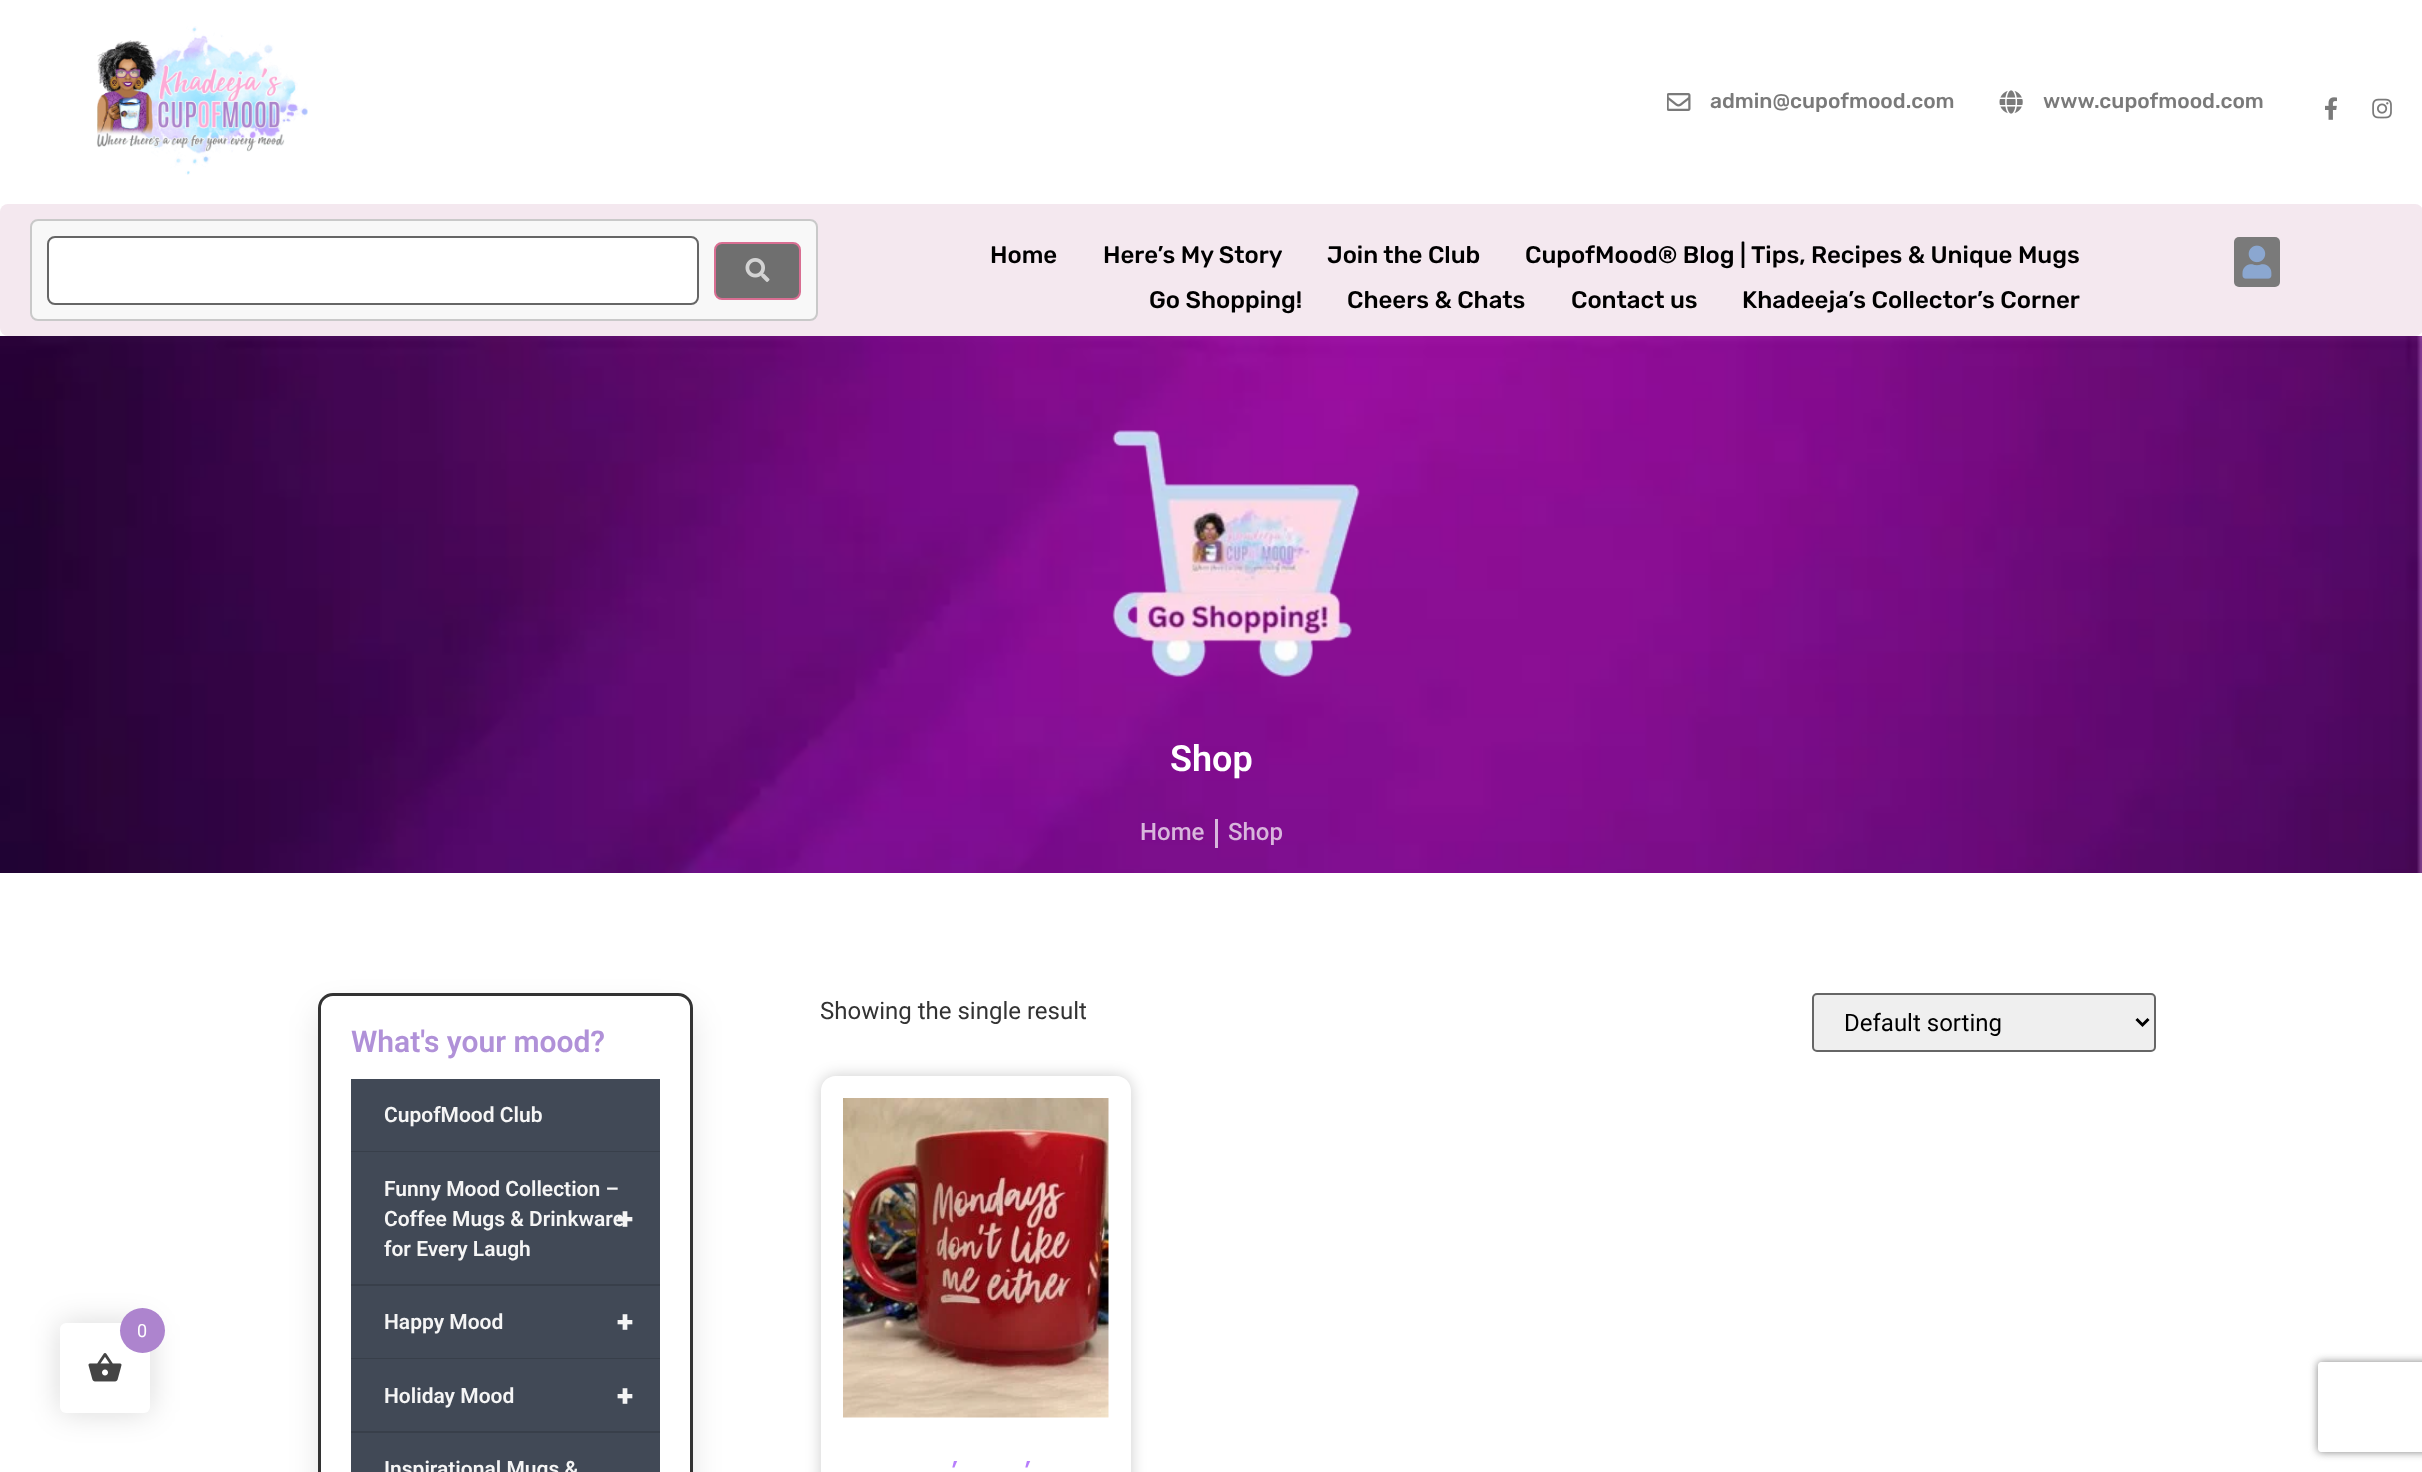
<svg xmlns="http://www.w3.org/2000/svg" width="2422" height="1472">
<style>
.a{font:500 21px Rubik;fill:#7a7a7a}
.b{font:500 24px Rubik;fill:#000}
.c{font:18px Roboto;fill:#fff}
.d{font:600 36px Roboto;fill:#fff}
.e{font:500 24px Roboto;fill:#d8b6dc}
.f{font:600 30px Roboto;fill:#b091d8}
.g{font:600 21px Roboto;fill:#f5f5f5}
.h{font:900 30px Roboto;fill:#f5f5f5}
.i{font:24px Roboto;fill:#333}
.j{font:24px Roboto;fill:#000}
.k{font:500 27px Jost;fill:#b77efc}
</style>
<defs>
<clipPath id="clip1"><path d="M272 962h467v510h-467zm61 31h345c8.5 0 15 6.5 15 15v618c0 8.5-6.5 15-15 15h-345c-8.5 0-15-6.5-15-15v-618c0-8.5 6.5-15 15-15z" clip-rule="evenodd"/></clipPath>
<clipPath id="clip2"><path d="M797 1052h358v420h-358zm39 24h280c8.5 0 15 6.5 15 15v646c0 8.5-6.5 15-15 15h-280c-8.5 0-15-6.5-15-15v-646c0-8.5 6.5-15 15-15z" clip-rule="evenodd"/></clipPath>
<clipPath id="clip3"><path d="M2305 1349h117v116h-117zm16 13h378c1.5 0 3 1.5 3 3v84c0 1.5-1.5 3-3 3h-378c-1.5 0-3-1.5-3-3v-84c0-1.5 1.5-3 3-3z" clip-rule="evenodd"/></clipPath>
</defs>
<rect width="100%" height="100%" fill="#fff"/>
<image href="1.png" x="96" y="26" width="212" height="149"/>
<image href="2.png" x="1667" y="93" width="24" height="18"/>
<image href="3.png" x="1999" y="90" width="24" height="24"/>
<image href="4.png" x="2325" y="97" width="12" height="23"/>
<image href="5.png" x="2372" y="98" width="20" height="21"/>
<rect fill="#f4e8ef" y="204" width="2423" height="132" rx="8"/>
<rect fill="#f8f8f8" stroke="#c9c9c9" stroke-width="2" x="31" y="220" width="786" height="100" rx="7"/>
<rect fill="#fff" stroke="#666" stroke-width="2" x="48" y="237" width="650" height="67" rx="7"/>
<rect fill="#6f6f6f" stroke="#d96e92" stroke-width="2" x="715" y="243" width="85" height="56" rx="7"/>
<image href="6.png" x="745" y="258" width="25" height="24"/>
<rect fill="#7a7a7a" x="2234" y="237" width="46" height="50" rx="5"/>
<image href="7.png" x="2242" y="245" width="30" height="34"/>
<rect fill="#00000026" filter="blur(15px)" x="60" y="1323" width="90" height="90" rx="6"/>
<rect fill="#fff" x="60" y="1323" width="90" height="90" rx="6"/>
<circle fill="#ad84ce" cx="142.5" cy="1330.5" r="22.5"/>
<image href="8.png" x="88" y="1353" width="34" height="29"/>
<image href="9.png" x="0" y="336" width="2422" height="537"/>
<image href="10.png" x="1112" y="430" width="248" height="247"/>
<path fill="#d8b7dd" d="M1215 819h3v29H1215z"/>
<g clip-path="url(#clip1)">
<rect fill="#0000001a" filter="blur(15px)" x="318" y="1008" width="375" height="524" rx="15"/>
</g>
<rect fill="none" stroke="#333" stroke-width="3" x="319.5" y="994.5" width="372" height="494" rx="13.5"/>
<path fill="#414956" d="M351 1079h309v72H351z"/>
<path fill="#383f4a" d="M351 1151h309v1H351z"/>
<path fill="#414956" d="M351 1152h309v132H351z"/>
<path fill="#383f4a" d="M351 1284h309v2H351z"/>
<path fill="#414956" d="M351 1286h309v72H351z"/>
<path fill="#383f4a" d="M351 1358h309v1H351z"/>
<path fill="#414956" d="M351 1359h309v72H351z"/>
<path fill="#383f4a" d="M351 1431h309v2H351z"/>
<path fill="#414956" d="M351 1433h309v39H351z"/>
<rect fill="#efefef" stroke="#666" stroke-width="2" x="1813" y="994" width="342" height="57" rx="4"/>
<path fill="none" stroke="#000" stroke-width="3" d="M2136.5 1019l6 6l6-6"/>
<g clip-path="url(#clip2)">
<rect fill="#00000033" filter="blur(7.5px)" x="821" y="1076" width="310" height="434" rx="15"/>
</g>
<image href="11.png" x="843" y="1098" width="266" height="320"/>
<g clip-path="url(#clip3)">
<rect fill="#808080" filter="blur(4px)" x="2318" y="1362" width="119" height="90" rx="3"/>
</g>
<text class="a" x="1710" y="108">admin@cupofmood.com</text>
<text class="a" x="2043" y="108">www.cupofmood.com</text>
<text class="b" x="990" y="263">Home</text>
<text class="b" x="1103" y="263">Here’s My Story</text>
<text class="b" x="1327" y="263">Join the Club</text>
<text class="b" x="1525" y="263">CupofMood® Blog | Tips, Recipes &amp; Unique Mugs</text>
<text class="b" x="1149" y="308">Go Shopping!</text>
<text class="b" x="1347" y="308">Cheers &amp; Chats</text>
<text class="b" x="1571" y="308">Contact us</text>
<text class="b" x="1742" y="308">Khadeeja’s Collector’s Corner</text>
<text class="c" x="137" y="1337">0</text>
<text class="d" x="1170" y="771">Shop</text>
<text class="e" x="1140" y="840">Home</text>
<text class="e" x="1228" y="840">Shop</text>
<text class="f" x="351" y="1052">What's your mood?</text>
<text class="g" x="384" y="1122">CupofMood Club</text>
<text class="g" x="384" y="1196">Funny Mood Collection –</text>
<text class="g" x="384" y="1226">Coffee Mugs &amp; Drinkware</text>
<text class="h" x="617" y="1229">+</text>
<text class="g" x="384" y="1256">for Every Laugh</text>
<text class="g" x="384" y="1329">Happy Mood</text>
<text class="h" x="617" y="1332">+</text>
<text class="g" x="384" y="1403">Holiday Mood</text>
<text class="h" x="617" y="1406">+</text>
<text class="g" x="384" y="1476">Inspirational Mugs &amp;</text>
<text class="i" x="820" y="1019">Showing the single result</text>
<text class="j" x="1844" y="1031">Default sorting</text>
<text class="k" x="951" y="1480">’</text>
<text class="k" x="1024" y="1480">’</text>
</svg>
